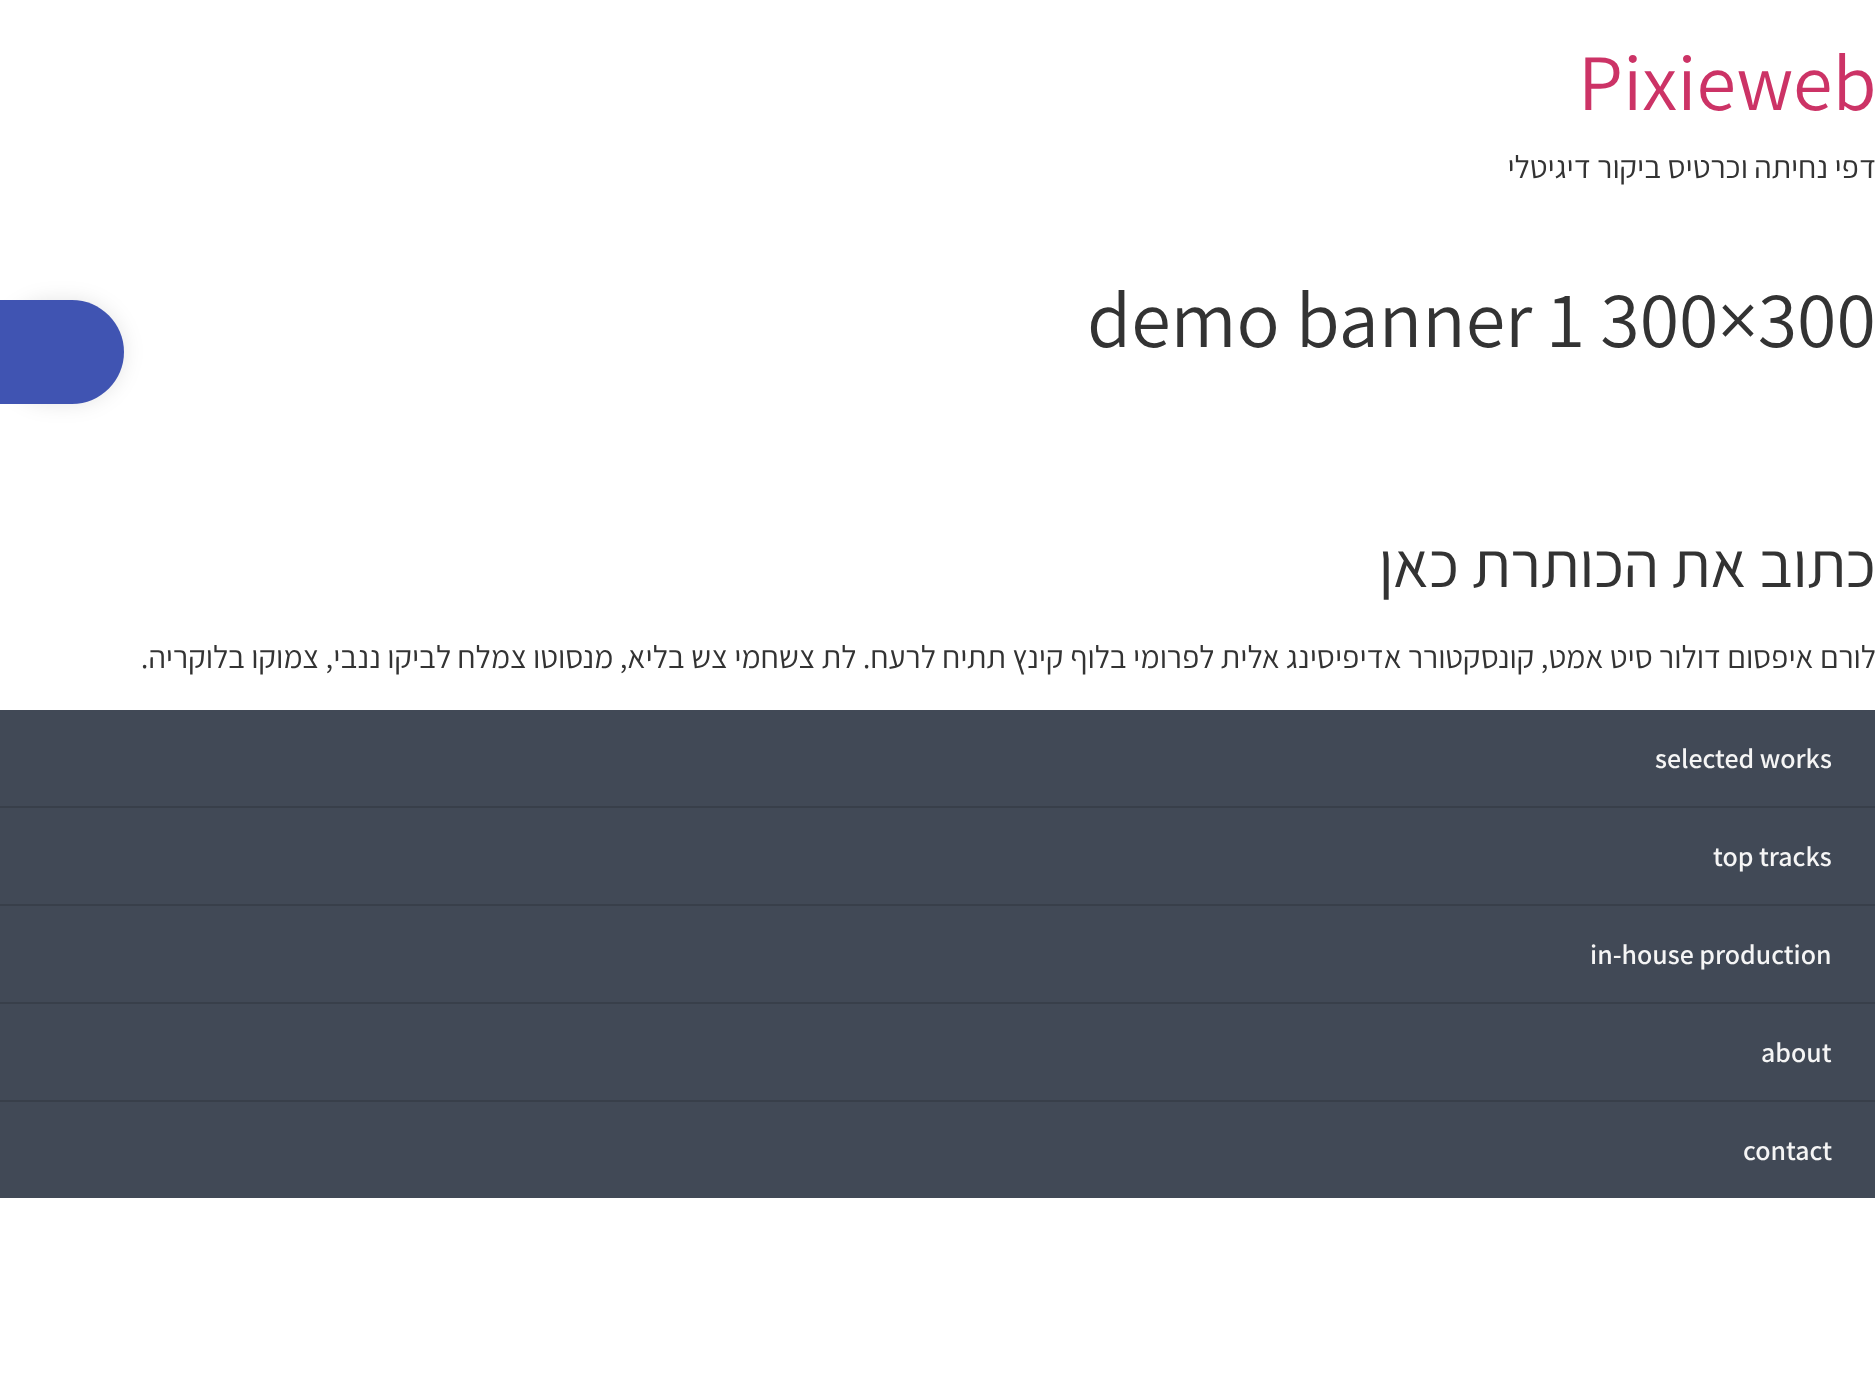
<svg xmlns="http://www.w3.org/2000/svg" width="1875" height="1391">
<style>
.a{font:80px Assistant;fill:#c36}
.b{font:32px Assistant;direction:rtl;fill:#333}
.c{font:80px Assistant;fill:#333}
.d{font:64px Assistant;direction:rtl;fill:#333}
.e{font:600 28px Assistant;fill:#f5f5f5}
</style>
<rect width="100%" height="100%" fill="#fff"/>
<rect fill="#0000001a" filter="blur(10px)" y="300" width="124" height="104" rx="52"/>
<path fill="#4054b2" d="M0 300h72c28.5 0 52 23.5 52 52c0 28.5-23.5 52-52 52h-72z"/>
<path fill="#414956" d="M0 710h1875v96H0z"/>
<path fill="#383f4a" d="M0 806h1875v2H0z"/>
<path fill="#414956" d="M0 808h1875v96H0z"/>
<path fill="#383f4a" d="M0 904h1875v2H0z"/>
<path fill="#414956" d="M0 906h1875v96H0z"/>
<path fill="#383f4a" d="M0 1002h1875v2H0z"/>
<path fill="#414956" d="M0 1004h1875v96H0z"/>
<path fill="#383f4a" d="M0 1100h1875v2H0z"/>
<path fill="#414956" d="M0 1102h1875v96H0z"/>
<text class="a" x="1578" y="110">Pixieweb</text>
<text class="b" x="1876" y="178">דפי נחיתה וכרטיס ביקור דיגיטלי</text>
<text class="c" x="1087" y="347">demo banner 1 300×300</text>
<text class="d" x="1876" y="587">כתוב את הכותרת כאן</text>
<text class="b" x="1876" y="668">לורם איפסום דולור סיט אמט, קונסקטורר אדיפיסינג אלית לפרומי בלוף קינץ תתיח לרעח. לת צשחמי צש בליא, מנסוטו צמלח לביקו ננבי, צמוקו בלוקריה.</text>
<text class="e" x="1655" y="768">selected works</text>
<text class="e" x="1713" y="866">top tracks</text>
<text class="e" x="1590" y="964">in-house production</text>
<text class="e" x="1761" y="1062">about</text>
<text class="e" x="1743" y="1160">contact</text>
</svg>
